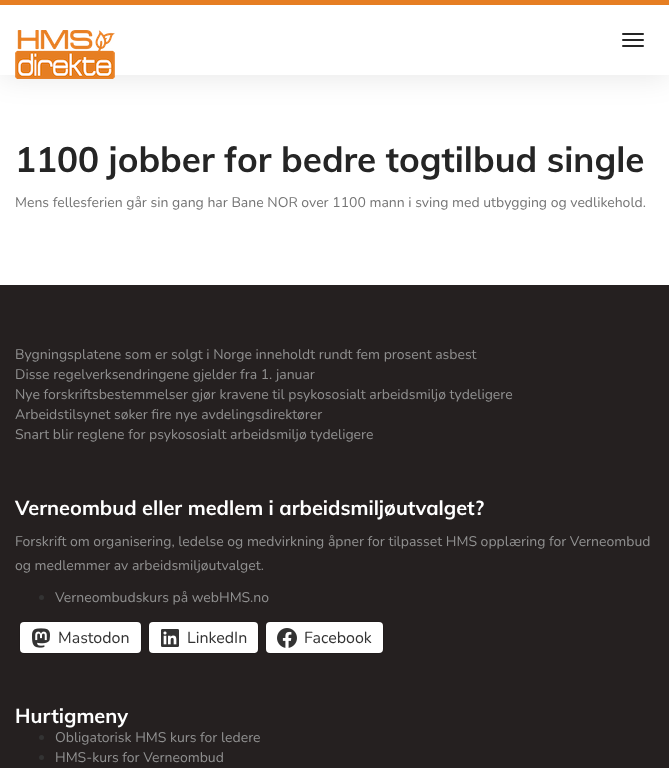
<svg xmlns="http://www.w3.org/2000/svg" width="669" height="768">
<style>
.a{font:bold 35px Muli;fill:#252525}
.b{font:200 14px Nunito;fill:#757575}
.c{font:200 14px Nunito;fill:#909090}
.d{font:bold 20px Muli;fill:#fff}
.e{font:200 16px Nunito;fill:#333}
</style>
<rect width="100%" height="100%" fill="#fff"/>
<path fill="#0000001a" filter="blur(15px)" d="M0 1h669v75H0z"/>
<path fill="#fff" d="M0 5h669v70H0z"/>
<path fill="#e67e22" d="M0 0h669v5H0z"/>
<image href="1.png" x="15" y="30" width="100" height="49"/>
<rect fill="#252525" x="622" y="33" width="22" height="2" rx="1"/>
<rect fill="#252525" x="622" y="39" width="22" height="2" rx="1"/>
<rect fill="#252525" x="622" y="45" width="22" height="2" rx="1"/>
<path fill="#252020" d="M0 285h669v483H0z"/>
<circle fill="#333" cx="41.5" cy="597.5" r="2.5"/>
<rect fill="none" stroke="#211c1c" x="19.5" y="621.5" width="122" height="32" rx="4.5"/>
<rect fill="#fff" x="20" y="622" width="121" height="31" rx="4"/>
<image href="2.png" x="32" y="628" width="18" height="20"/>
<rect fill="none" stroke="#211c1c" x="148.5" y="621.5" width="110" height="32" rx="4.5"/>
<rect fill="#fff" x="149" y="622" width="109" height="31" rx="4"/>
<image href="3.png" x="161" y="629" width="18" height="18"/>
<rect fill="none" stroke="#211c1c" x="265.5" y="621.5" width="118" height="32" rx="4.5"/>
<rect fill="#fff" x="266" y="622" width="117" height="31" rx="4"/>
<image href="4.png" x="277" y="628" width="20" height="20"/>
<circle fill="#333" cx="41.5" cy="737.5" r="2.5"/>
<circle fill="#333" cx="41.5" cy="757.5" r="2.5"/>
<text class="a" x="15" y="172">1100 jobber for bedre togtilbud single</text>
<text class="b" x="15" y="207">Mens fellesferien går sin gang har Bane NOR over 1100 mann i sving med utbygging og vedlikehold.</text>
<text class="c" x="15" y="359">Bygningsplatene som er solgt i Norge inneholdt rundt fem prosent asbest</text>
<text class="c" x="15" y="379">Disse regelverksendringene gjelder fra 1. januar</text>
<text class="c" x="15" y="399">Nye forskriftsbestemmelser gjør kravene til psykososialt arbeidsmiljø tydeligere</text>
<text class="c" x="15" y="419">Arbeidstilsynet søker fire nye avdelingsdirektører</text>
<text class="c" x="15" y="439">Snart blir reglene for psykososialt arbeidsmiljø tydeligere</text>
<text class="d" x="15" y="515">Verneombud eller medlem i arbeidsmiljøutvalget?</text>
<text class="c" x="15" y="546">Forskrift om organisering, ledelse og medvirkning åpner for tilpasset HMS opplæring for Verneombud</text>
<text class="c" x="15" y="570">og medlemmer av arbeidsmiljøutvalget.</text>
<text class="c" x="55" y="602">Verneombudskurs på webHMS.no</text>
<text class="e" x="58" y="643">Mastodon</text>
<text class="e" x="187" y="643">LinkedIn</text>
<text class="e" x="304" y="643">Facebook</text>
<text class="d" x="15" y="723">Hurtigmeny</text>
<text class="c" x="55" y="742">Obligatorisk HMS kurs for ledere</text>
<text class="c" x="55" y="762">HMS-kurs for Verneombud</text>
</svg>
